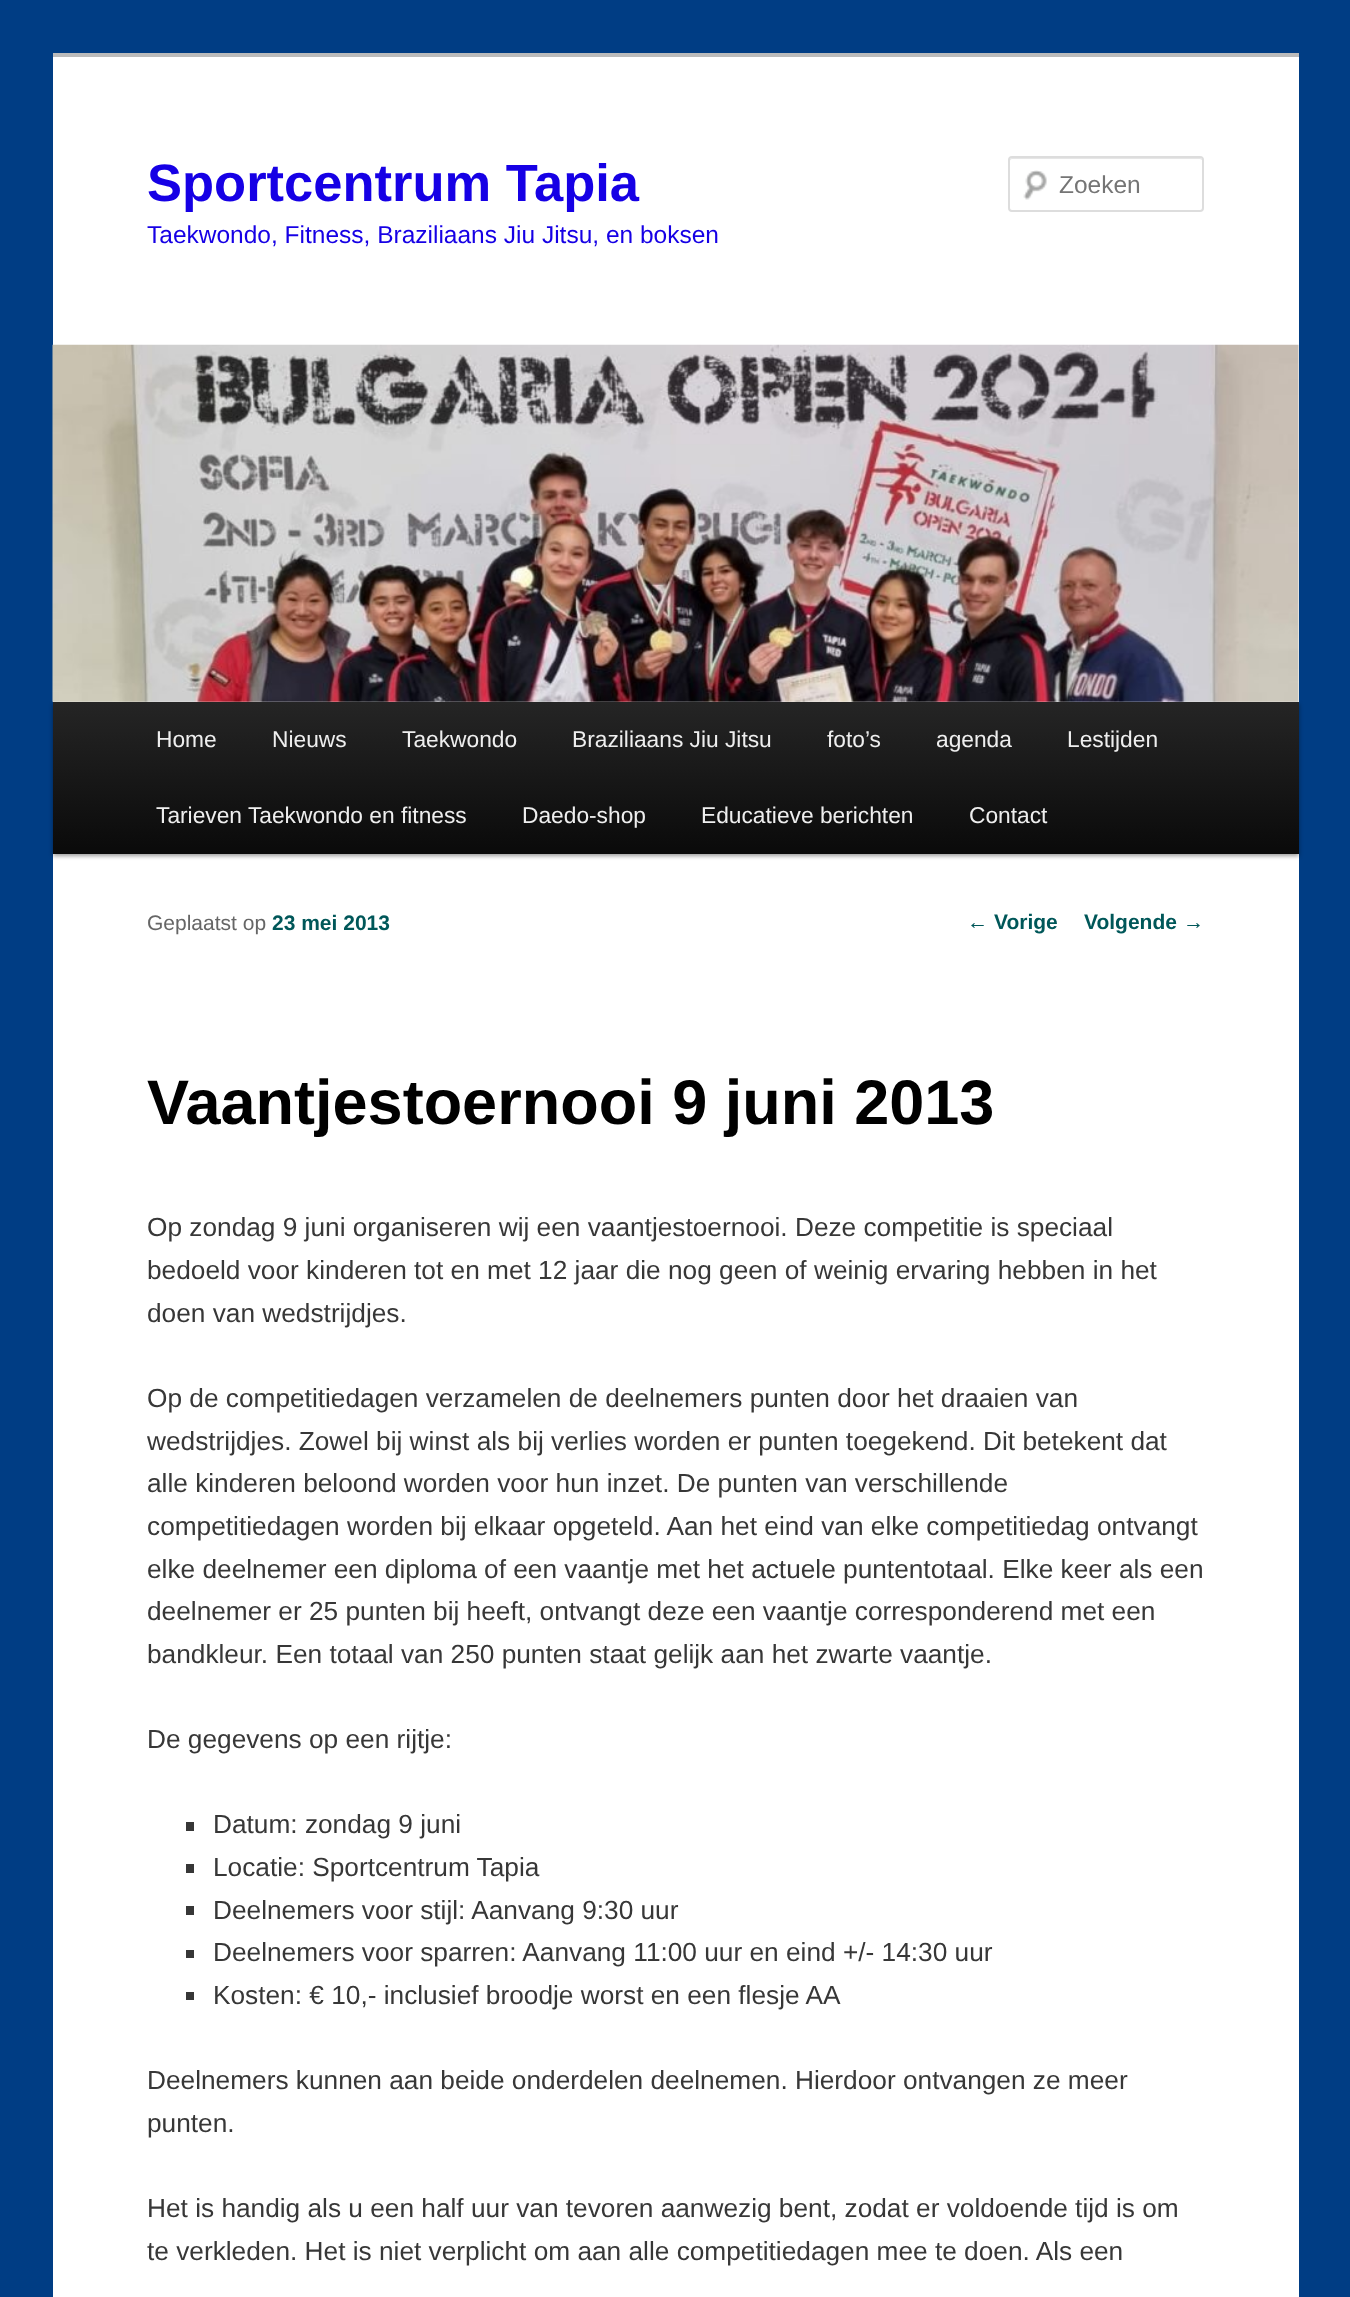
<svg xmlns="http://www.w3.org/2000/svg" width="1350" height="2297">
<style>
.a{font:bold 52.5px Liberation Sans;fill:#1600e5}
.b{font:24.5px Liberation Sans;fill:#1600e5}
.c{font:24.5px Liberation Sans;fill:#757575}
.d{font:22.75px Liberation Sans;fill:#eee}
.e{font:21px Liberation Sans;fill:#005759}
.f{font:bold 21px Liberation Sans;fill:#005759}
.g{font:21px Liberation Sans;fill:#666}
.h{font:bold 63px Liberation Sans;fill:#000}
.i{font:26.25px Liberation Sans;fill:#373737}
</style>
<defs>
<linearGradient id="g1" gradientUnits="userSpaceOnUse" x1="676" y1="702" x2="676" y2="854"><stop offset="0" stop-color="#252525"/><stop offset="1" stop-color="#0a0a0a"/></linearGradient>
</defs>
<rect width="100%" height="100%" fill="#003d84"/>
<path fill="#fff" d="M53 57h1246v2240H53z"/>
<path fill="#bbb" d="M53 53h1246v4H53z"/>
<image href="1.png" x="1023" y="170" width="24" height="30"/>
<path fill="#e6e6e6" d="M1012 159h188l2 1v1v-1c0-1-1-2-2-2h-188c-1 0-2 1-2 2v1c0-1 1-2 2-2z"/>
<rect fill="none" stroke="#ddd" stroke-width="2" x="1009" y="157" width="194" height="54" rx="3"/>
<path fill="#00000066" filter="blur(2px)" d="M53 704h1246v152H53z"/>
<image href="2.png" x="52" y="344" width="1247" height="358"/>
<path fill="url(#g1)" d="M53 702h1246v152H53z"/>
<path fill="#373737" d="M186 1822h8v9H186z"/>
<path fill="#373737" d="M186 1864h8v9H186z"/>
<path fill="#373737" d="M186 1906h8v9H186z"/>
<path fill="#373737" d="M186 1950h8v8H186z"/>
<path fill="#373737" d="M186 1992h8v8H186z"/>
<text class="a" x="147" y="201">Sportcentrum Tapia</text>
<text class="b" x="147" y="243">Taekwondo, Fitness, Braziliaans Jiu Jitsu, en boksen</text>
<text class="c" x="1059" y="193">Zoeken</text>
<text class="d" x="156" y="747">Home</text>
<text class="d" x="272" y="747">Nieuws</text>
<text class="d" x="402" y="747">Taekwondo</text>
<text class="d" x="572" y="747">Braziliaans Jiu Jitsu</text>
<text class="d" x="827" y="747">foto’s</text>
<text class="d" x="936" y="747">agenda</text>
<text class="d" x="1067" y="747">Lestijden</text>
<text class="d" x="156" y="823">Tarieven Taekwondo en fitness</text>
<text class="d" x="522" y="823">Daedo-shop</text>
<text class="d" x="701" y="823">Educatieve berichten</text>
<text class="d" x="969" y="823">Contact</text>
<text class="e" x="967" y="929">←</text>
<text class="f" x="994" y="929">Vorige</text>
<text class="f" x="1084" y="929">Volgende</text>
<text class="e" x="1183" y="929">→</text>
<text class="g" x="147" y="930">Geplaatst op</text>
<text class="f" x="272" y="930">23 mei 2013</text>
<text class="h" x="147" y="1124">Vaantjestoernooi 9 juni 2013</text>
<text class="i" x="147" y="1236">Op zondag 9 juni organiseren wij een vaantjestoernooi. Deze competitie is speciaal</text>
<text class="i" x="147" y="1279">bedoeld voor kinderen tot en met 12 jaar die nog geen of weinig ervaring hebben in het</text>
<text class="i" x="147" y="1322">doen van wedstrijdjes.</text>
<text class="i" x="147" y="1407">Op de competitiedagen verzamelen de deelnemers punten door het draaien van</text>
<text class="i" x="147" y="1450">wedstrijdjes. Zowel bij winst als bij verlies worden er punten toegekend. Dit betekent dat</text>
<text class="i" x="147" y="1492">alle kinderen beloond worden voor hun inzet. De punten van verschillende</text>
<text class="i" x="147" y="1535">competitiedagen worden bij elkaar opgeteld. Aan het eind van elke competitiedag ontvangt</text>
<text class="i" x="147" y="1578">elke deelnemer een diploma of een vaantje met het actuele puntentotaal. Elke keer als een</text>
<text class="i" x="147" y="1620">deelnemer er 25 punten bij heeft, ontvangt deze een vaantje corresponderend met een</text>
<text class="i" x="147" y="1663">bandkleur. Een totaal van 250 punten staat gelijk aan het zwarte vaantje.</text>
<text class="i" x="147" y="1748">De gegevens op een rijtje:</text>
<text class="i" x="213" y="1833">Datum: zondag 9 juni</text>
<text class="i" x="213" y="1876">Locatie: Sportcentrum Tapia</text>
<text class="i" x="213" y="1919">Deelnemers voor stijl: Aanvang 9:30 uur</text>
<text class="i" x="213" y="1961">Deelnemers voor sparren: Aanvang 11:00 uur en eind +/- 14:30 uur</text>
<text class="i" x="213" y="2004">Kosten: € 10,- inclusief broodje worst en een flesje AA</text>
<text class="i" x="147" y="2089">Deelnemers kunnen aan beide onderdelen deelnemen. Hierdoor ontvangen ze meer</text>
<text class="i" x="147" y="2132">punten.</text>
<text class="i" x="147" y="2217">Het is handig als u een half uur van tevoren aanwezig bent, zodat er voldoende tijd is om</text>
<text class="i" x="147" y="2260">te verkleden. Het is niet verplicht om aan alle competitiedagen mee te doen. Als een</text>
</svg>
